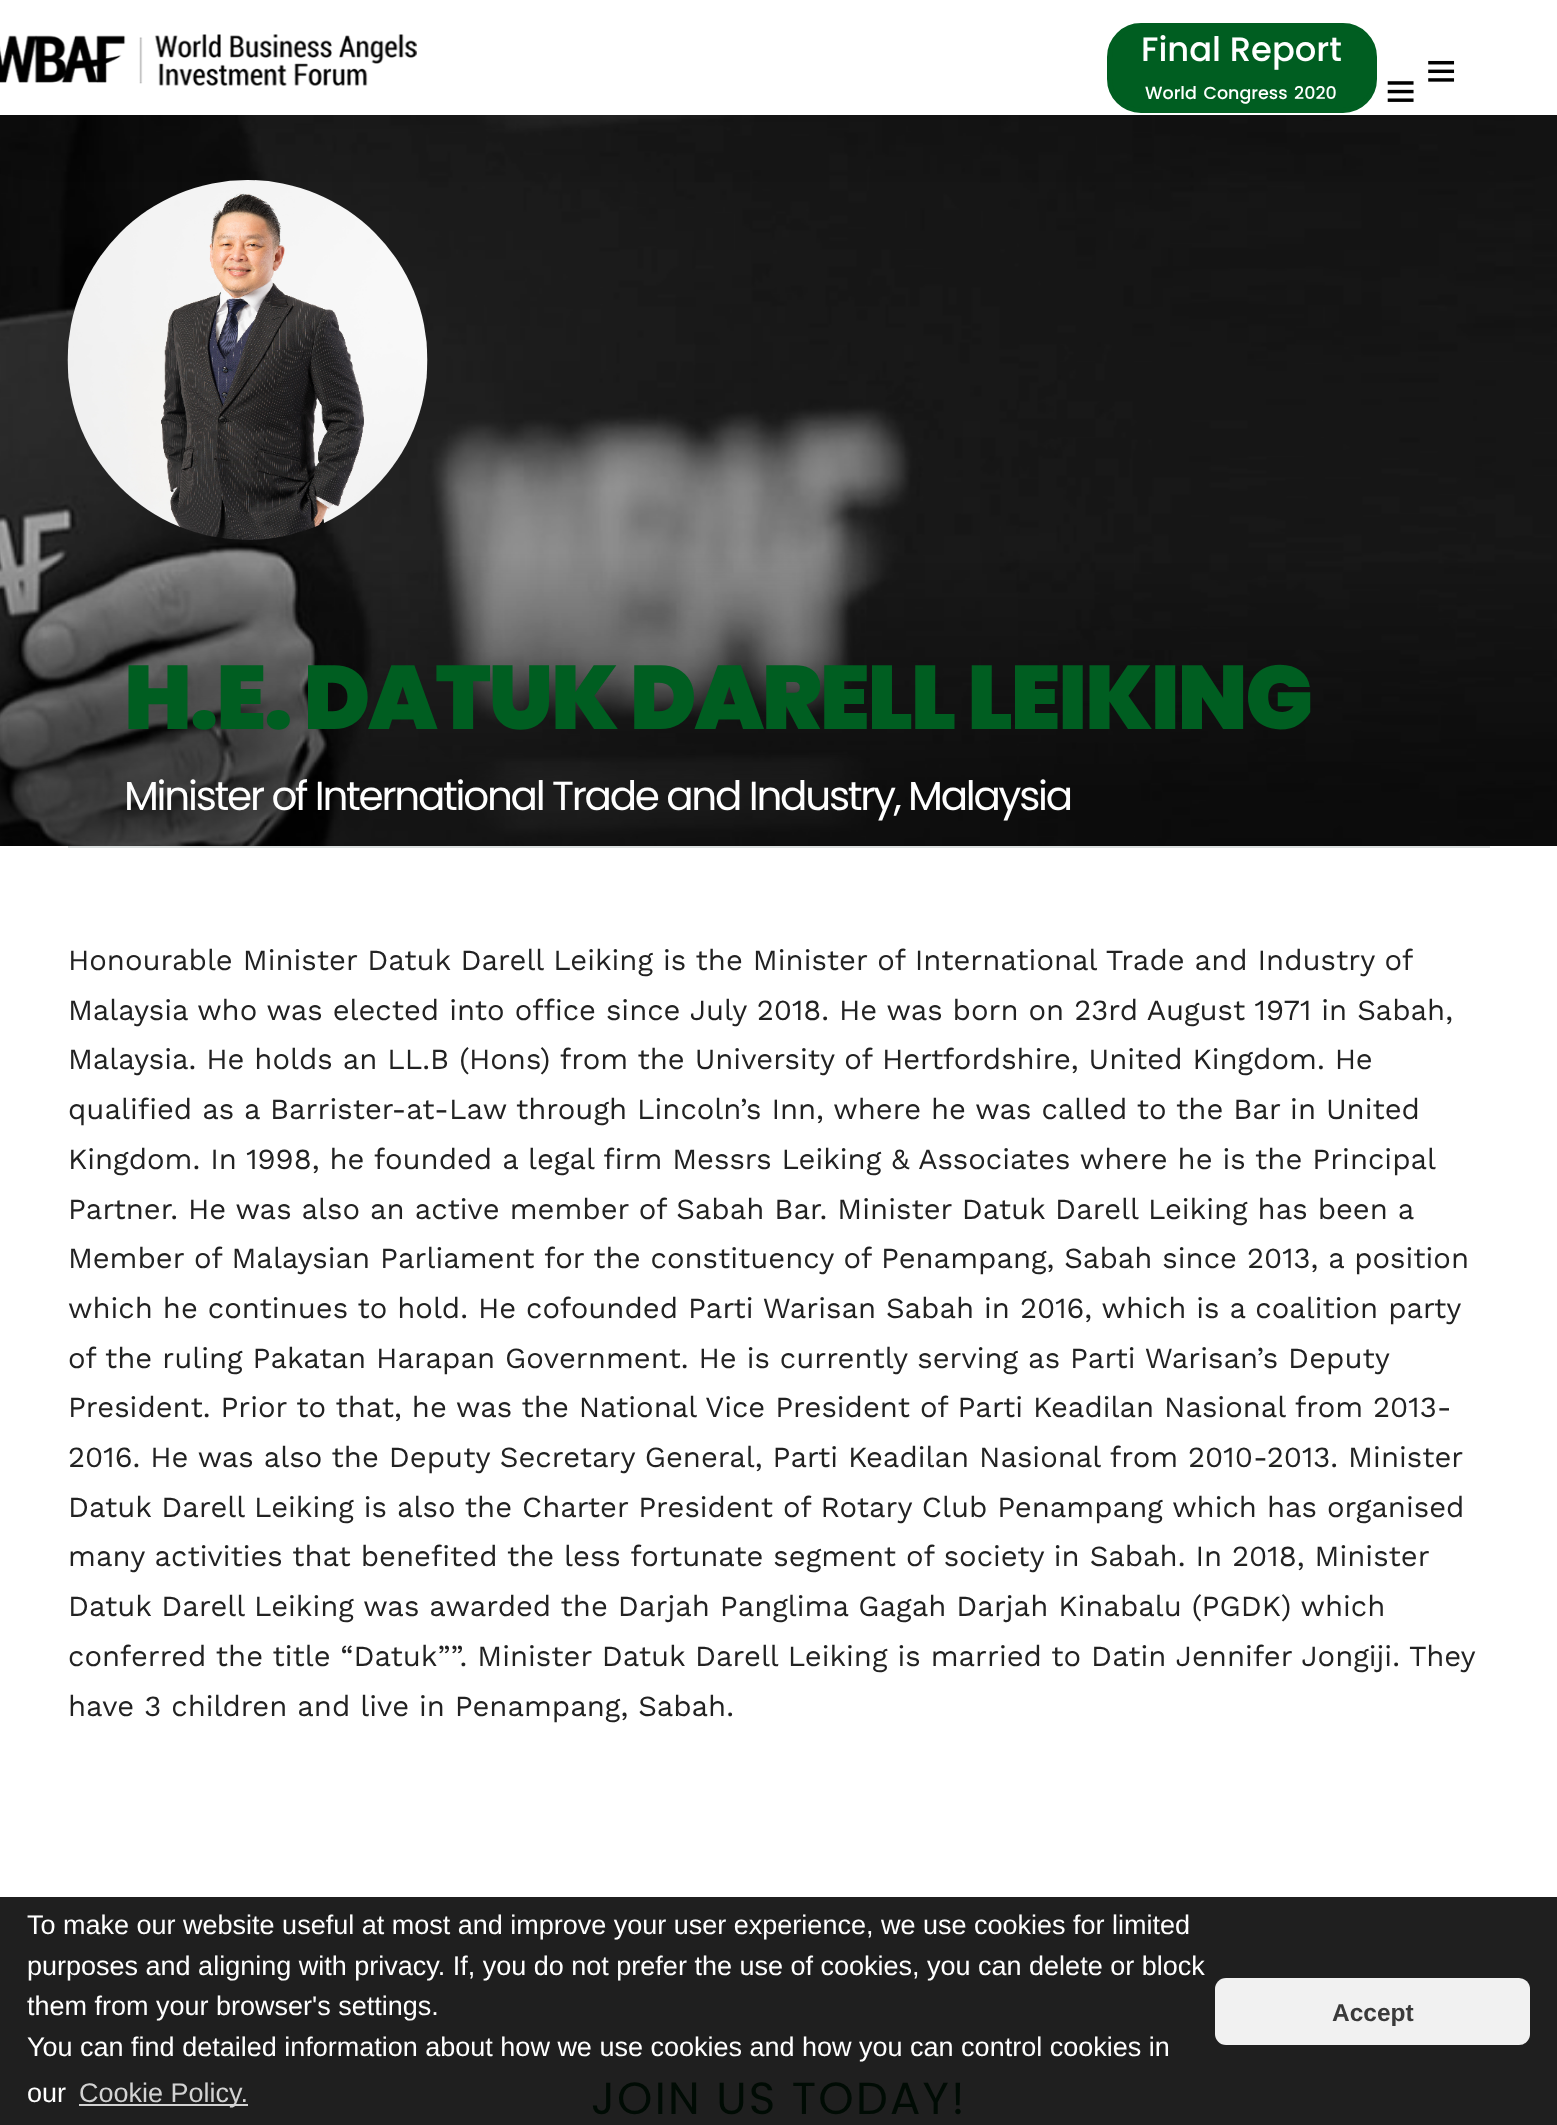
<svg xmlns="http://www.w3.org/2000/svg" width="1557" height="2125">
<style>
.a{font:500 33.75px Poppins;fill:#fff}
.b{font:500 17.5px Poppins;fill:#fff}
.c{font:900 90px Poppins;letter-spacing:-2.25px;fill:#005e21}
.d{font:40.5px Poppins;letter-spacing:-2.25px;fill:#fff}
.e{font:29.25px Work Sans;fill:#222}
.f{font:45px Poppins;letter-spacing:2.25px;fill:#000b04}
.g{font:27px Liberation Sans;fill:#fff}
.h{font:27px Liberation Sans;fill:#d2d2d2}
.i{font:bold 24.5px Liberation Sans;fill:#3a3a3a}
</style>
<rect width="100%" height="100%" fill="#fff"/>
<path fill="#1f1f1f" d="M0 1897h1557v228H0z"/>
<image href="4.png" x="0" y="115" width="1557" height="731"/>
<image href="5.png" x="67" y="180" width="361" height="360"/>
<path fill="#0000001a" filter="blur(34px)" d="M0 2h1557v115H0z"/>
<path fill="#fff" d="M0 0h1557v115H0z"/>
<image href="1.png" x="0" y="34" width="417" height="52"/>
<rect fill="#005e21" stroke="#005e21" stroke-width="5" x="1109.5" y="25.5" width="265" height="85" rx="31.5"/>
<image href="2.png" x="1387" y="81" width="27" height="21"/>
<image href="3.png" x="1428" y="60" width="27" height="22"/>
<path fill="#dce0e0" d="M68 846h1422v2H68z"/>
<path fill="#d2d2d2" d="M79 2104h169v2H79z"/>
<rect fill="#f1f1f1" x="1215" y="1978" width="315" height="67" rx="11"/>
<text class="a" x="1141" y="61">Final Report</text>
<text class="b" x="1145" y="99" word-spacing="2">World Congress 2020</text>
<text class="c" x="124" y="729">H.E. DATUK DARELL LEIKING</text>
<text class="d" x="124" y="810">Minister of International Trade and Industry, Malaysia</text>
<text class="e" x="68" y="970">Honourable Minister Datuk Darell Leiking is the Minister of International Trade and Industry of</text>
<text class="e" x="68" y="1020">Malaysia who was elected into office since July 2018. He was born on 23rd August 1971 in Sabah,</text>
<text class="e" x="68" y="1069">Malaysia. He holds an LL.B (Hons) from the University of Hertfordshire, United Kingdom. He</text>
<text class="e" x="68" y="1119">qualified as a Barrister-at-Law through Lincoln’s Inn, where he was called to the Bar in United</text>
<text class="e" x="68" y="1169">Kingdom. In 1998, he founded a legal firm Messrs Leiking &amp; Associates where he is the Principal</text>
<text class="e" x="68" y="1219">Partner. He was also an active member of Sabah Bar. Minister Datuk Darell Leiking has been a</text>
<text class="e" x="68" y="1268">Member of Malaysian Parliament for the constituency of Penampang, Sabah since 2013, a position</text>
<text class="e" x="68" y="1318">which he continues to hold. He cofounded Parti Warisan Sabah in 2016, which is a coalition party</text>
<text class="e" x="68" y="1368">of the ruling Pakatan Harapan Government. He is currently serving as Parti Warisan’s Deputy</text>
<text class="e" x="68" y="1417">President. Prior to that, he was the National Vice President of Parti Keadilan Nasional from 2013-</text>
<text class="e" x="68" y="1467">2016. He was also the Deputy Secretary General, Parti Keadilan Nasional from 2010-2013. Minister</text>
<text class="e" x="68" y="1517">Datuk Darell Leiking is also the Charter President of Rotary Club Penampang which has organised</text>
<text class="e" x="68" y="1566">many activities that benefited the less fortunate segment of society in Sabah. In 2018, Minister</text>
<text class="e" x="68" y="1616">Datuk Darell Leiking was awarded the Darjah Panglima Gagah Darjah Kinabalu (PGDK) which</text>
<text class="e" x="68" y="1666">conferred the title “Datuk””. Minister Datuk Darell Leiking is married to Datin Jennifer Jongiji. They</text>
<text class="e" x="68" y="1716">have 3 children and live in Penampang, Sabah.</text>
<text class="f" x="591" y="2114">JOIN US TODAY!</text>
<text class="g" x="27" y="1934">To make our website useful at most and improve your user experience, we use cookies for limited</text>
<text class="g" x="27" y="1975">purposes and aligning with privacy. If, you do not prefer the use of cookies, you can delete or block</text>
<text class="g" x="27" y="2015">them from your browser's settings.</text>
<text class="g" x="27" y="2056">You can find detailed information about how we use cookies and how you can control cookies in</text>
<text class="g" x="27" y="2102">our</text>
<text class="h" x="79" y="2102">Cookie Policy.</text>
<text class="i" x="1332" y="2021">Accept</text>
</svg>
